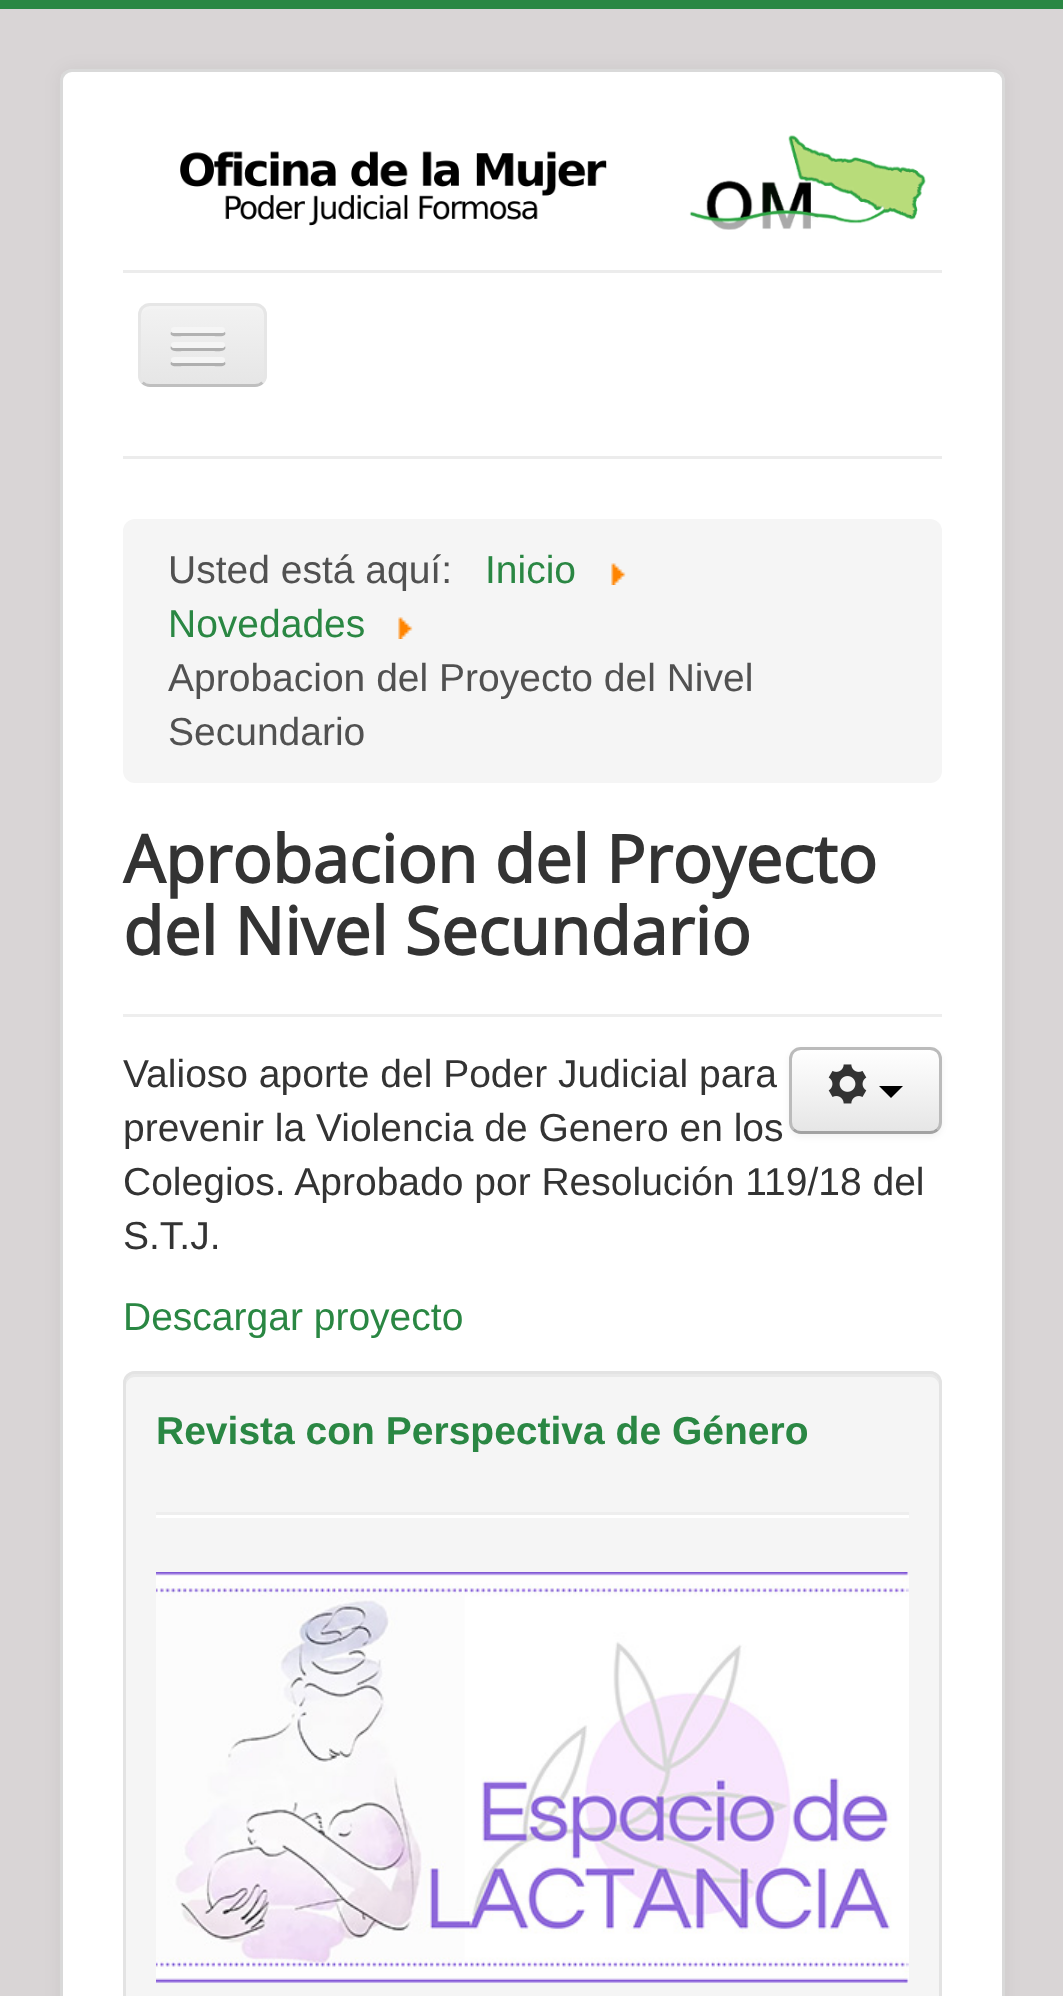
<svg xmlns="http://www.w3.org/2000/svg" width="1063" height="1996">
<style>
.a{font:39px Liberation Sans;fill:#515151}
.b{font:39px Liberation Sans;fill:#2a8743}
.c{font:bold 66px Open Sans;fill:#333}
.d{font:39px Liberation Sans;fill:#333}
.e{font:bold 39px Liberation Sans;fill:#2a8743}
</style>
<defs>
<clipPath id="clip1"><rect x="138" y="303" width="129" height="84" rx="12"/></clipPath>
<linearGradient id="g1" gradientUnits="userSpaceOnUse" x1="203" y1="306" x2="203" y2="384"><stop offset="0" stop-color="#f2f2f2"/><stop offset="1" stop-color="#e6e6e6"/></linearGradient>
<clipPath id="clip2"><rect x="789" y="1047" width="153" height="87" rx="12"/></clipPath>
<linearGradient id="g2" gradientUnits="userSpaceOnUse" x1="866" y1="1050" x2="866" y2="1131"><stop offset="0" stop-color="#fff"/><stop offset="1" stop-color="#e6e6e6"/></linearGradient>
</defs>
<rect width="100%" height="100%" fill="#d9d5d6"/>
<path fill="#2a8743" d="M0 0h1063v9H0z"/>
<rect fill="#0000000d" filter="blur(9px)" x="60" y="69" width="945" height="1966" rx="12"/>
<rect fill="#fff" x="60" y="69" width="945" height="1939" rx="12"/>
<rect fill="none" stroke="#00000026" stroke-width="3" x="61.5" y="70.5" width="942" height="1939" rx="10.5"/>
<image href="1.png" x="180" y="135" width="746" height="95"/>
<path fill="#ececec" d="M123 270h819v3H123z"/>
<path fill="#ececec" d="M123 456h819v3H123z"/>
<g clip-path="url(#clip1)">
<path fill="url(#g1)" d="M138 306h129v78H138z"/>
</g>
<path fill="#f3f3f3" d="M150 309h105c5 0 9 4 9 9c0-16-13-12-26-12h-70c-14 0-27-4-27 12c0-5 4-9 9-9z"/>
<path fill="none" stroke="#bfbfbf" stroke-width="3" d="M262.5 382.5c-2 2-4.5 3-7.5 3h-105c-3 0-5.5-1-7.5-3"/>
<path fill="none" stroke="#e6e6e6" stroke-width="3" d="M142.5 382.5c-2-2-3-4.5-3-7.5v-60c0-3 1-5.5 3-7.5c2-2 4.5-3 7.5-3h105c3 0 5.5 1 7.5 3c2 2 3 4.5 3 7.5v60c0 3-1 5.5-3 7.5"/>
<path fill="#b2b2b2" d="M171 332c-3 6 11 4 11 4h32c0 0 14 2 11-4c-1 0-2 1-3 1h-48c-1 0-2-1-3-1z"/>
<rect fill="#f5f5f5" x="171" y="327" width="54" height="6" rx="3"/>
<path fill="#b0b0b0" d="M171 346c-3 7 11 5 11 5h32c0 0 14 2 11-5c-1 1-2 2-3 2h-48c-1 0-2-1-3-2z"/>
<rect fill="#f5f5f5" x="171" y="342" width="54" height="6" rx="3"/>
<path fill="#afafaf" d="M171 362c-3 6 11 4 11 4h32c0 0 14 2 11-4c-1 0-2 1-3 1h-48c-1 0-2-1-3-1z"/>
<rect fill="#f5f5f5" x="171" y="357" width="54" height="6" rx="3"/>
<rect fill="#f5f5f5" x="123" y="519" width="819" height="264" rx="12"/>
<image href="2.png" x="611" y="563" width="15" height="22"/>
<image href="2.png" x="398" y="617" width="15" height="22"/>
<path fill="#eee" d="M123 1014h819v3H123z"/>
<rect fill="#0000000d" filter="blur(3px)" x="789" y="1050" width="153" height="87" rx="12"/>
<g clip-path="url(#clip2)">
<path fill="url(#g2)" d="M789 1050h153v81H789z"/>
</g>
<path fill="none" stroke="#a2a2a2" stroke-width="3" d="M937.5 1129.5c-2 2-4.5 3-7.5 3h-129c-3 0-5.5-1-7.5-3"/>
<path fill="none" stroke="#bbb" stroke-width="3" d="M793.5 1129.5c-2-2-3-4.5-3-7.5v-63c0-3 1-5.5 3-7.5c2-2 4.5-3 7.5-3h129c3 0 5.5 1 7.5 3c2 2 3 4.5 3 7.5v63c0 3-1 5.5-3 7.5"/>
<image href="3.png" x="828" y="1064" width="39" height="40"/>
<path fill="#000" d="M879 1086h24l-12 12z"/>
<rect fill="#f5f5f5" x="123" y="1371" width="819" height="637" rx="12"/>
<path fill="#e9e9e9" d="M135 1377h795c5 0 9 4 9 9v-3c0-5-4-9-9-9h-795c-5 0-9 4-9 9v3c0-5 4-9 9-9z"/>
<rect fill="none" stroke="#e3e3e3" stroke-width="3" x="124.5" y="1372.5" width="816" height="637" rx="10.5"/>
<path fill="#eee" d="M156 1512h753v3H156z"/>
<path fill="#fff" d="M156 1515h753v3H156z"/>
<image href="4.png" x="156" y="1572" width="753" height="411"/>
<text class="a" x="168" y="583">Usted está aquí:</text>
<text class="b" x="485" y="583">Inicio</text>
<text class="b" x="168" y="637">Novedades</text>
<text class="a" x="168" y="691">Aprobacion del Proyecto del Nivel</text>
<text class="a" x="168" y="745">Secundario</text>
<text class="c" x="123" y="883">Aprobacion del Proyecto</text>
<text class="c" x="123" y="955">del Nivel Secundario</text>
<text class="d" x="123" y="1087">Valioso aporte del Poder Judicial para</text>
<text class="d" x="123" y="1141">prevenir la Violencia de Genero en los</text>
<text class="d" x="123" y="1195">Colegios. Aprobado por Resolución 119/18 del</text>
<text class="d" x="123" y="1249">S.T.J.</text>
<text class="b" x="123" y="1330">Descargar proyecto</text>
<text class="e" x="156" y="1444">Revista con Perspectiva de Género</text>
</svg>
